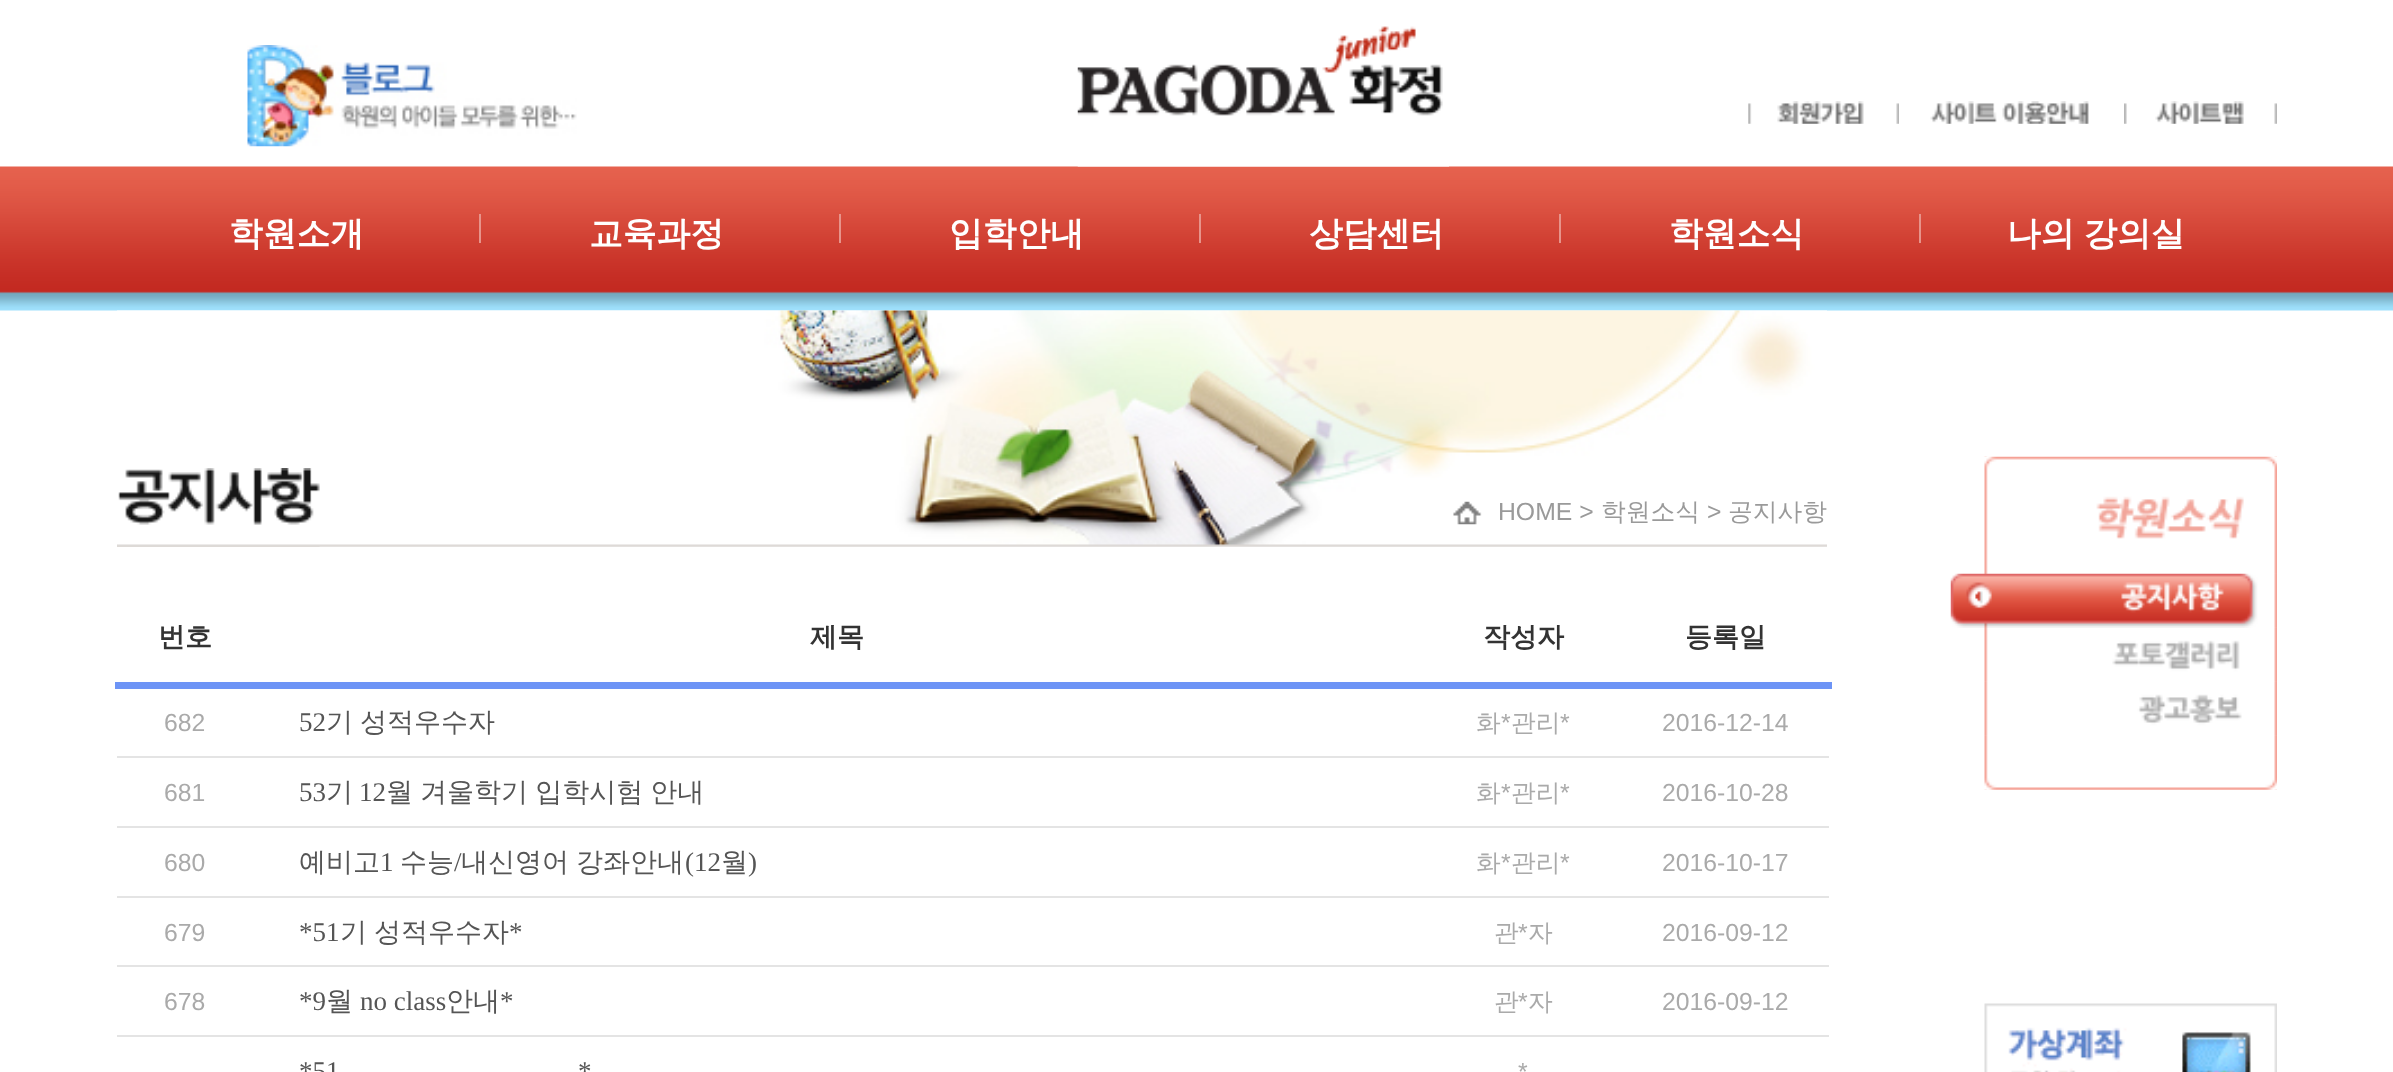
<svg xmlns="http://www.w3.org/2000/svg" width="2393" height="1072">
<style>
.a{font:bold 33.75px WenQuanYi Zen Hei;fill:#fff}
.b{font:24.75px Liberation Sans;fill:#9a9a9a}
.c{font:500 24.75px WenQuanYi Zen Hei;fill:#9a9a9a}
.d{font:bold 27px WenQuanYi Zen Hei;fill:#333}
.e{font:24.75px Liberation Sans;fill:#aaa}
.f{font:27px Liberation Serif;fill:#555}
.g{font:500 27px WenQuanYi Zen Hei;fill:#555}
.h{font:500 24.75px WenQuanYi Zen Hei;fill:#aaa}
</style>
<rect width="100%" height="100%" fill="#fff"/>
<image href="1.png" x="247" y="45" width="330" height="102"/>
<image href="6.png" x="0" y="166" width="2393" height="145"/>
<image href="2.png" x="1077" y="26" width="372" height="141"/>
<image href="3.png" x="1748" y="101" width="151" height="23"/>
<image href="4.png" x="1930" y="101" width="159" height="23"/>
<image href="5.png" x="2124" y="101" width="153" height="23"/>
<path fill="#e7948b" d="M479 214h2v29H479z"/>
<path fill="#e7948b" d="M839 214h2v29H839z"/>
<path fill="#e7948b" d="M1199 214h2v29H1199z"/>
<path fill="#e7948b" d="M1559 214h2v29H1559z"/>
<path fill="#e7948b" d="M1919 214h2v29H1919z"/>
<image href="7.png" x="117" y="310" width="1710" height="237"/>
<image href="8.png" x="117" y="468" width="203" height="79"/>
<image href="9.png" x="1453" y="501" width="29" height="24"/>
<path fill="#6d94f6" d="M115 682h1717v7H115z"/>
<path fill="#e4e4e4" d="M117 756h1712v2H117z"/>
<path fill="#e4e4e4" d="M117 826h1712v2H117z"/>
<path fill="#e4e4e4" d="M117 896h1712v2H117z"/>
<path fill="#e4e4e4" d="M117 965h1712v2H117z"/>
<path fill="#e4e4e4" d="M117 1035h1712v2H117z"/>
<image href="10.png" x="1983" y="456" width="294" height="118"/>
<image href="12.png" x="1983" y="573" width="294" height="55"/>
<image href="11.png" x="1983" y="456" width="294" height="118"/>
<image href="12.png" x="1983" y="627" width="294" height="55"/>
<image href="13.png" x="1950" y="573" width="327" height="55"/>
<image href="12.png" x="1983" y="681" width="294" height="55"/>
<image href="14.png" x="1983" y="628" width="294" height="54"/>
<image href="12.png" x="1983" y="735" width="294" height="55"/>
<image href="15.png" x="1983" y="682" width="294" height="54"/>
<image href="16.png" x="1983" y="736" width="294" height="54"/>
<image href="17.png" x="1984" y="1003" width="293" height="69"/>
<text class="a" x="229" y="245">학원소개</text>
<text class="a" x="589" y="245">교육과정</text>
<text class="a" x="949" y="245">입학안내</text>
<text class="a" x="1309" y="245">상담센터</text>
<text class="a" x="1669" y="245">학원소식</text>
<text class="a" x="2007" y="245" word-spacing="-1">나의 강의실</text>
<text class="b" x="1498" y="520">HOME &gt;</text>
<text class="c" x="1601" y="520">학원소식</text>
<text class="b" x="1707" y="520">&gt;</text>
<text class="c" x="1728" y="520">공지사항</text>
<text class="d" x="158" y="646">번호</text>
<text class="d" x="810" y="646">제목</text>
<text class="d" x="1483" y="646">작성자</text>
<text class="d" x="1685" y="646">등록일</text>
<text class="e" x="164" y="731">682</text>
<text class="f" x="299" y="731">52</text>
<text class="g" x="326" y="731" word-spacing="-1">기 성적우수자</text>
<text class="h" x="1476" y="731">화</text>
<text class="e" x="1501" y="731">*</text>
<text class="h" x="1511" y="731">관리</text>
<text class="e" x="1560" y="731">*</text>
<text class="e" x="1662" y="731">2016-12-14</text>
<text class="e" x="164" y="801">681</text>
<text class="f" x="299" y="801">53</text>
<text class="g" x="326" y="801">기</text>
<text class="f" x="359" y="801">12</text>
<text class="g" x="386" y="801" word-spacing="-1">월 겨울학기 입학시험 안내</text>
<text class="h" x="1476" y="801">화</text>
<text class="e" x="1501" y="801">*</text>
<text class="h" x="1511" y="801">관리</text>
<text class="e" x="1560" y="801">*</text>
<text class="e" x="1662" y="801">2016-10-28</text>
<text class="e" x="164" y="871">680</text>
<text class="g" x="299" y="871">예비고</text>
<text class="f" x="380" y="871">1</text>
<text class="g" x="400" y="871">수능</text>
<text class="f" x="454" y="871">/</text>
<text class="g" x="461" y="871" word-spacing="-1">내신영어 강좌안내</text>
<text class="f" x="685" y="871">(12</text>
<text class="g" x="721" y="871">월</text>
<text class="f" x="748" y="871">)</text>
<text class="h" x="1476" y="871">화</text>
<text class="e" x="1501" y="871">*</text>
<text class="h" x="1511" y="871">관리</text>
<text class="e" x="1560" y="871">*</text>
<text class="e" x="1662" y="871">2016-10-17</text>
<text class="e" x="164" y="941">679</text>
<text class="f" x="299" y="941">*51</text>
<text class="g" x="340" y="941" word-spacing="-1">기 성적우수자</text>
<text class="f" x="509" y="941">*</text>
<text class="h" x="1494" y="941">관</text>
<text class="e" x="1518" y="941">*</text>
<text class="h" x="1528" y="941">자</text>
<text class="e" x="1662" y="941">2016-09-12</text>
<text class="e" x="164" y="1010">678</text>
<text class="f" x="299" y="1010">*9</text>
<text class="g" x="326" y="1010">월</text>
<text class="f" x="360" y="1010">no class</text>
<text class="g" x="446" y="1010">안내</text>
<text class="f" x="500" y="1010">*</text>
<text class="h" x="1494" y="1010">관</text>
<text class="e" x="1518" y="1010">*</text>
<text class="h" x="1528" y="1010">자</text>
<text class="e" x="1662" y="1010">2016-09-12</text>
<text class="f" x="299" y="1080">*51</text>
<text class="f" x="578" y="1080">*</text>
<text class="e" x="1518" y="1080">*</text>
</svg>
